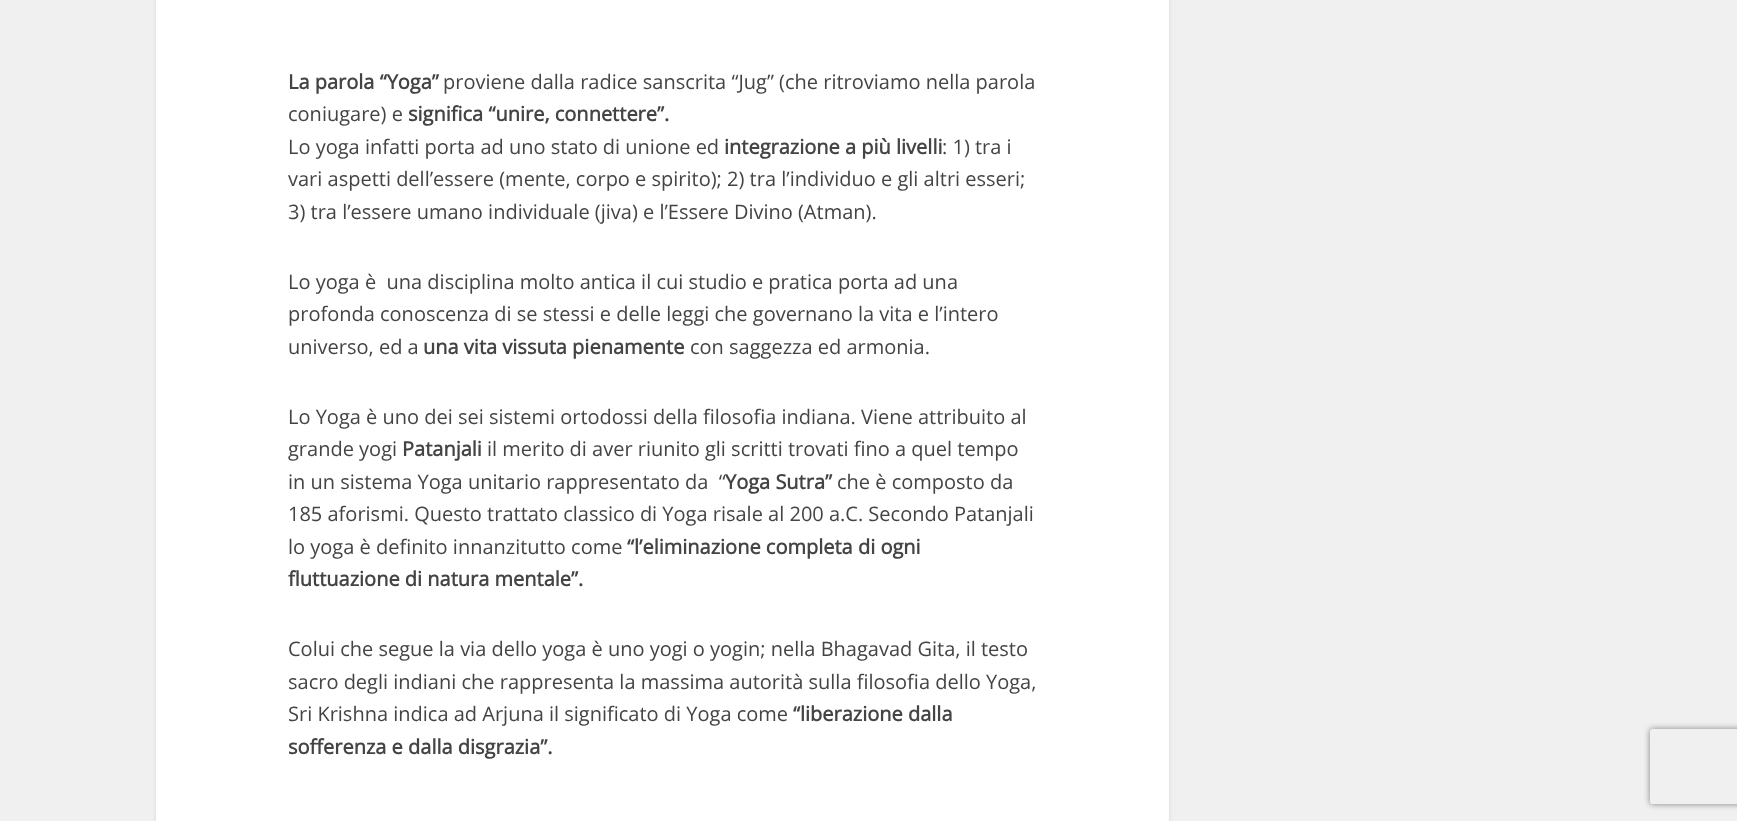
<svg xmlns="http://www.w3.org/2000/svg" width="1737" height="821">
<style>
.a{font:bold 20px Open Sans;fill:#444}
.b{font:20px Open Sans;fill:#444}
</style>
<defs>
<clipPath id="clip1"><path d="M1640 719h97v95h-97zm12.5 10h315c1.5 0 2.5 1 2.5 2.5v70c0 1.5-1 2.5-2.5 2.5h-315c-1.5 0-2.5-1-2.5-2.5v-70c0-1.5 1-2.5 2.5-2.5z" clip-rule="evenodd"/></clipPath>
</defs>
<rect width="100%" height="100%" fill="#f0f0f0"/>
<path fill="#0000001a" filter="blur(2px)" d="M156 -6h1013v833H156z"/>
<path fill="#fff" d="M156 0h1013v821H156z"/>
<g clip-path="url(#clip1)">
<rect fill="#808080" filter="blur(3px)" x="1650" y="729" width="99" height="75" rx="2.5"/>
</g>
<text class="a" x="288" y="89">La parola “Yoga”</text>
<text class="b" x="443" y="89">proviene dalla radice sanscrita “Jug” (che ritroviamo nella parola</text>
<text class="b" x="288" y="121">coniugare) e</text>
<text class="a" x="408" y="121">significa “unire, connettere”.</text>
<text class="b" x="288" y="154">Lo yoga infatti porta ad uno stato di unione ed</text>
<text class="a" x="724" y="154">integrazione a più livelli</text>
<text class="b" x="942" y="154">: 1) tra i</text>
<text class="b" x="288" y="186">vari aspetti dell’essere (mente, corpo e spirito); 2) tra l’individuo e gli altri esseri;</text>
<text class="b" x="288" y="219">3) tra l’essere umano individuale (jiva) e l’Essere Divino (Atman).</text>
<text class="b" xml:space="preserve" x="288" y="289">Lo yoga è  una disciplina molto antica il cui studio e pratica porta ad una</text>
<text class="b" x="288" y="321">profonda conoscenza di se stessi e delle leggi che governano la vita e l’intero</text>
<text class="b" x="288" y="354">universo, ed a</text>
<text class="a" x="423" y="354">una vita vissuta pienamente</text>
<text class="b" x="690" y="354">con saggezza ed armonia.</text>
<text class="b" x="288" y="424">Lo Yoga è uno dei sei sistemi ortodossi della filosofia indiana. Viene attribuito al</text>
<text class="b" x="288" y="456">grande yogi</text>
<text class="a" x="402" y="456">Patanjali</text>
<text class="b" x="487" y="456">il merito di aver riunito gli scritti trovati fino a quel tempo</text>
<text class="b" xml:space="preserve" x="288" y="489">in un sistema Yoga unitario rappresentato da  “</text>
<text class="a" x="725" y="489">Yoga Sutra”</text>
<text class="b" x="837" y="489">che è composto da</text>
<text class="b" x="288" y="521">185 aforismi. Questo trattato classico di Yoga risale al 200 a.C. Secondo Patanjali</text>
<text class="b" x="288" y="554">lo yoga è definito innanzitutto come</text>
<text class="a" x="627" y="554">“l’eliminazione completa di ogni</text>
<text class="a" x="288" y="586">fluttuazione di natura mentale”.</text>
<text class="b" x="288" y="656">Colui che segue la via dello yoga è uno yogi o yogin; nella Bhagavad Gita, il testo</text>
<text class="b" x="288" y="689">sacro degli indiani che rappresenta la massima autorità sulla filosofia dello Yoga,</text>
<text class="b" x="288" y="721">Sri Krishna indica ad Arjuna il significato di Yoga come</text>
<text class="a" x="793" y="721">“liberazione dalla</text>
<text class="a" x="288" y="754">sofferenza e dalla disgrazia”.</text>
</svg>
